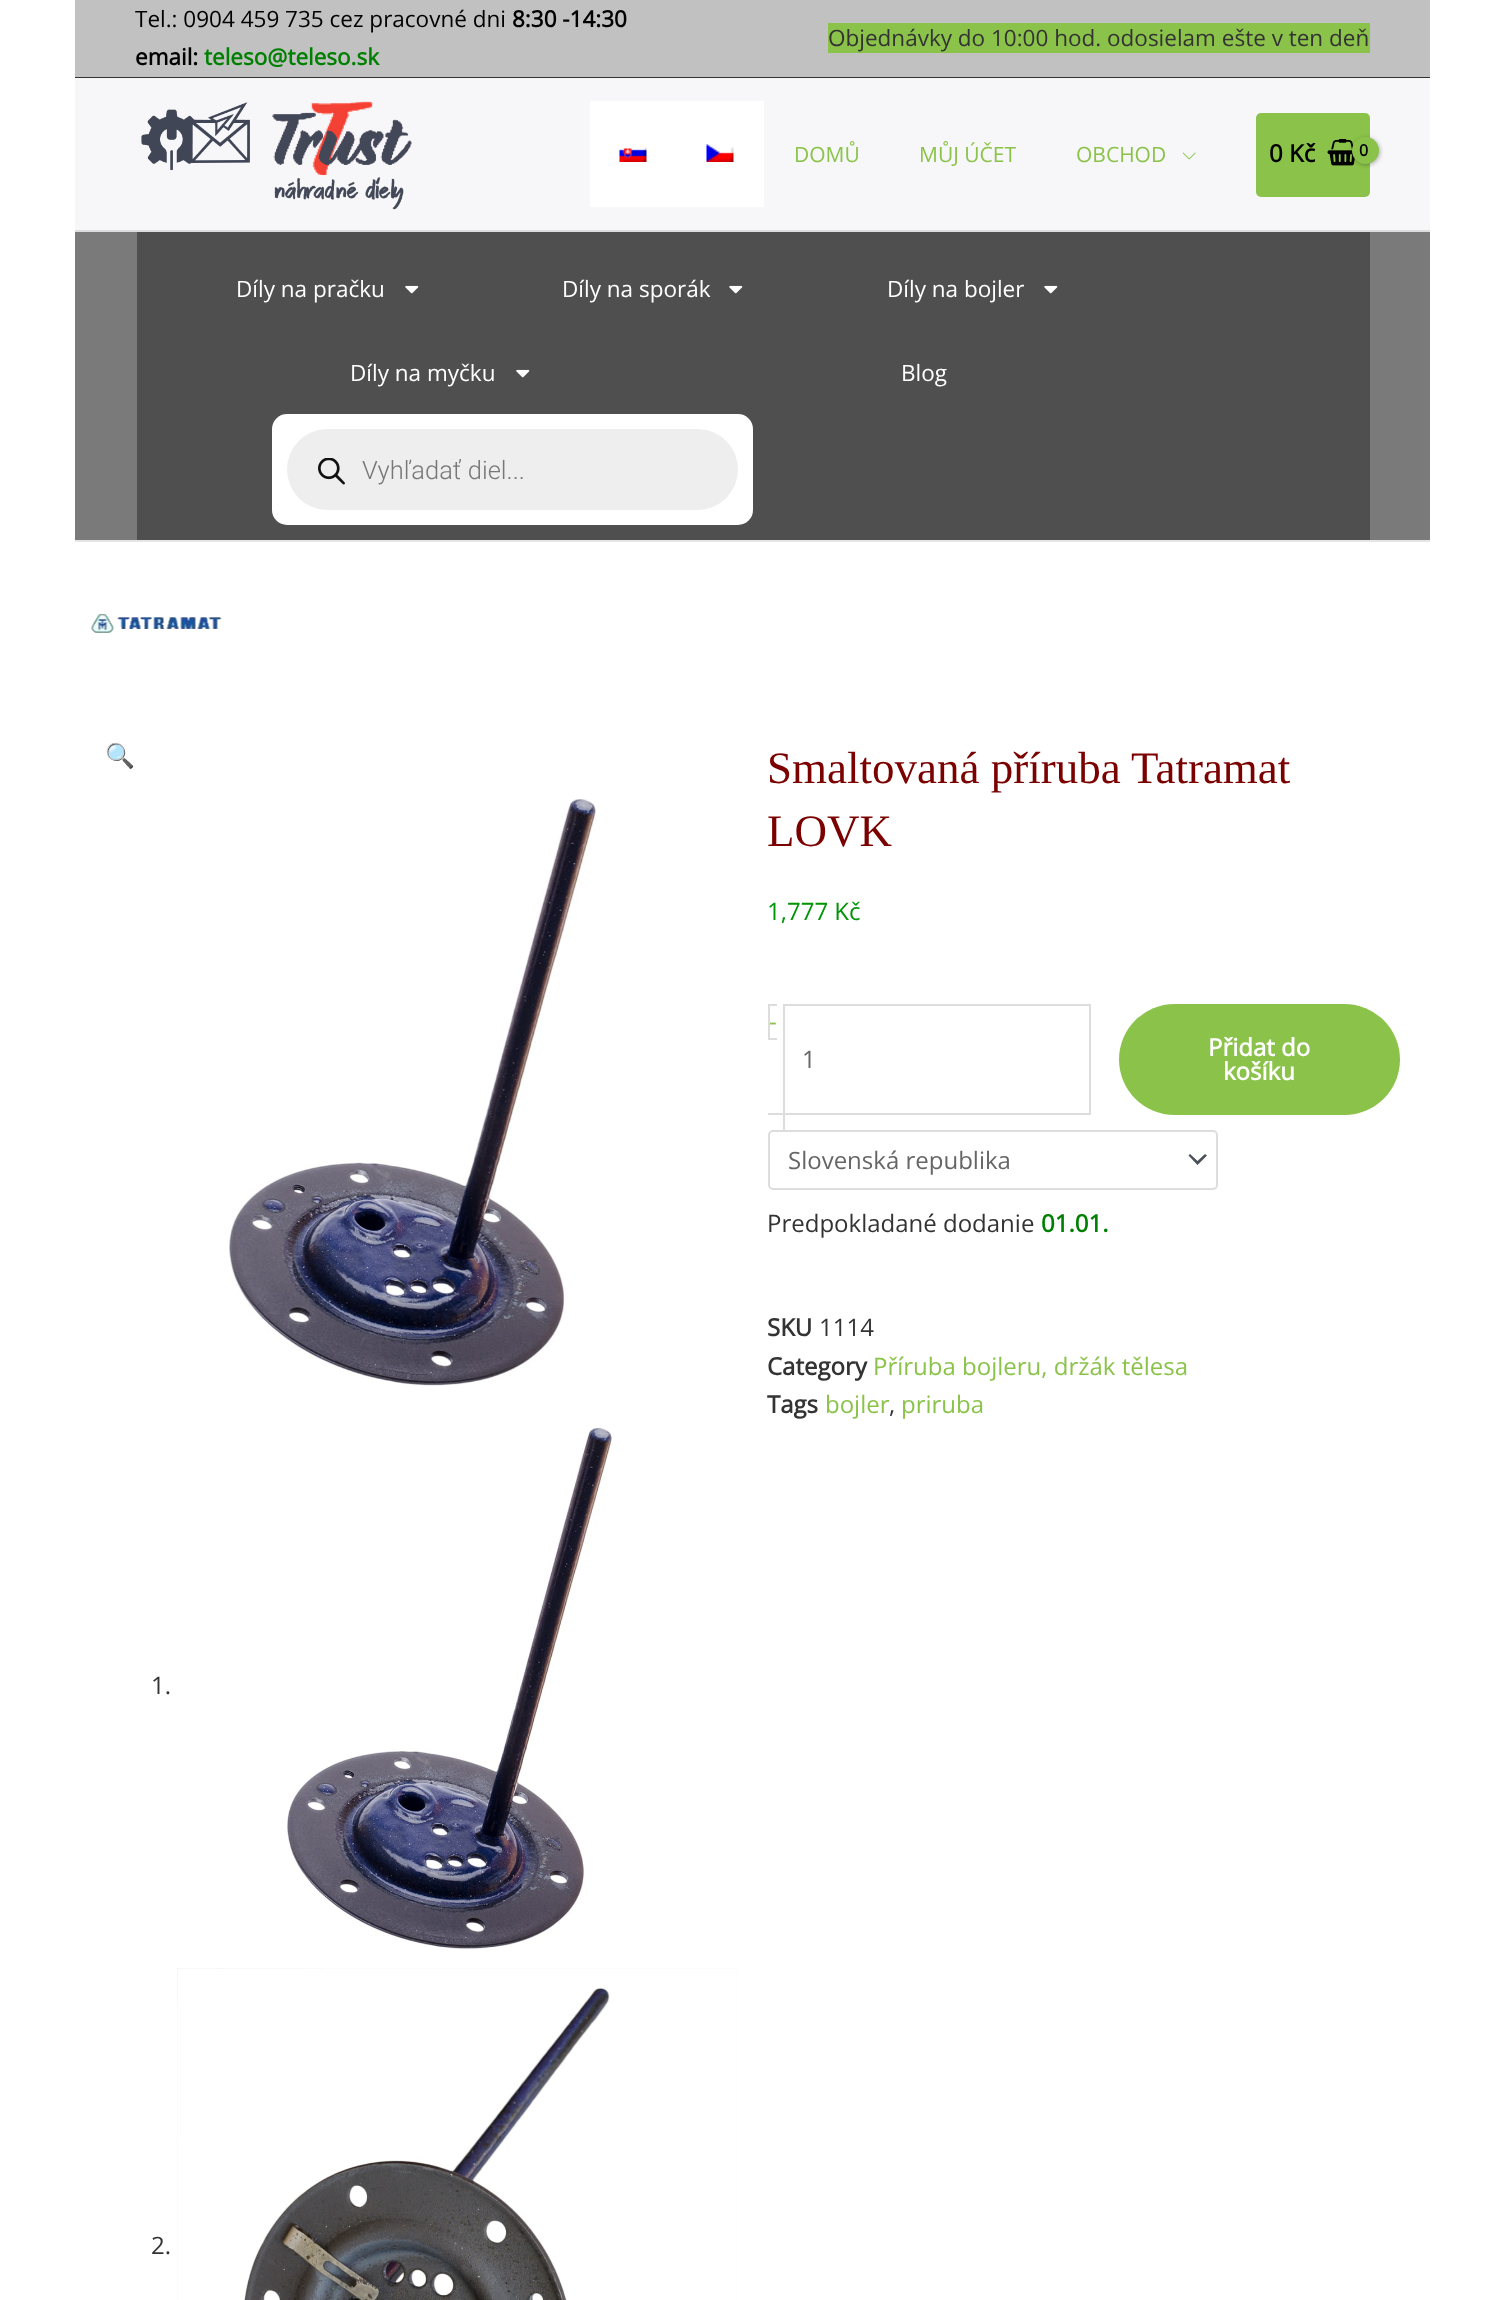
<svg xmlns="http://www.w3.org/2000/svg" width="1504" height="2300">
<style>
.a{font:22.5px Open Sans;fill:#000}
.b{font:bold 22.5px Open Sans;fill:#000}
.c{font:bold 22.5px Open Sans;fill:#008000}
.d{font:22.5px Open Sans;fill:#333}
.e{font:21px Open Sans;fill:#8bc34a}
.f{font:bold 24px Open Sans;fill:#000}
.g{font:bold 16px Open Sans;letter-spacing:-1px;fill:#000}
.h{font:22.5px Open Sans;fill:#fff}
.i{font:300 25.5px Roboto;fill:#777}
.j{font:24px Noto Color Emoji;fill:#8bc34a}
.k{font:24px Open Sans;fill:#333}
.l{font:45px Liberation Serif;fill:#7b0000}
.m{font:24px Open Sans;fill:#009507}
.n{font:24px Open Sans;fill:#8bc34a}
.o{font:24px Open Sans;fill:#666}
.p{font:bold 24px Open Sans;fill:#fff}
.q{font:bold 24px Open Sans;fill:#008000}
.r{font:bold 24px Open Sans;fill:#333}
</style>
<rect width="100%" height="100%" fill="#fff"/>
<path fill="#c1c1c1" d="M75 0h1355v77H75z"/>
<path fill="#333" d="M75 77h1355v1H75z"/>
<path fill="#8bc34a" d="M828 23h542v30H828z"/>
<path fill="#f7f7f9" d="M75 78h1355v152H75z"/>
<path fill="#ddd" d="M75 230h1355v2H75z"/>
<image href="1.png" x="141" y="101" width="271" height="114"/>
<path fill="#fff" d="M590 101h174v106H590z"/>
<image href="2.png" x="619" y="147" width="28" height="15"/>
<image href="3.png" x="706" y="144" width="28" height="18"/>
<image href="4.png" x="1182" y="152" width="14" height="8"/>
<rect fill="#8bc34a" x="1256" y="113" width="114" height="84" rx="5"/>
<image href="5.png" x="1327" y="139" width="28" height="27"/>
<rect fill="#0000004d" filter="blur(2px)" x="1353" y="138" width="27" height="27" rx="13.5"/>
<circle fill="#8bc34a" cx="1365.5" cy="150.5" r="13.5"/>
<path fill="#7a7a7a" d="M75 232h1355v308H75z"/>
<path fill="#e5e5e5" d="M75 540h1355v2H75z"/>
<path fill="#4f4f4f" d="M137 232h1233v308H137z"/>
<image href="6.png" x="405" y="285" width="14" height="9"/>
<image href="6.png" x="729" y="285" width="14" height="9"/>
<image href="6.png" x="1044" y="285" width="14" height="9"/>
<image href="6.png" x="516" y="369" width="14" height="9"/>
<rect fill="#fff" x="272" y="414" width="481" height="111" rx="15"/>
<rect fill="#eee" x="287" y="429" width="451" height="81" rx="40.5"/>
<image href="7.png" x="318" y="458" width="27" height="27"/>
<image href="8.png" x="91" y="614" width="131" height="19"/>
<image href="9.png" x="229" y="799" width="367" height="587"/>
<image href="10.png" x="287" y="1428" width="325" height="521"/>
<image href="11.png" x="177" y="1968" width="561" height="332"/>
<path fill="#ddd" d="M768 1004h9v2H768z"/>
<path fill="#ddd" d="M768 1038h9v2H768z"/>
<path fill="#ddd" d="M768 1004h2v36H768z"/>
<path fill="none" stroke="#ddd" stroke-width="2" d="M784 1005h306v109H784z"/>
<path fill="#ddd" d="M768 1113h17v2H768z"/>
<path fill="#ddd" d="M783 1113h2v17H783z"/>
<rect fill="#8bc34a" x="1119" y="1004" width="281" height="111" rx="55.5"/>
<path fill="#4b4f58" d="M1188.5 1155.5l9 9.5l9.5-9.5l-2-1.5l-7.5 7l-7.5-7z"/>
<rect fill="none" stroke="#ddd" stroke-width="2" x="769" y="1131" width="448" height="58" rx="4"/>
<text class="a" x="135" y="27">Tel.: 0904 459 735 cez pracovné dni</text>
<text class="b" x="512" y="27">8:30 -14:30</text>
<text class="b" x="135" y="65">email:</text>
<text class="c" x="204" y="65">teleso@teleso.sk</text>
<text class="d" x="828" y="46">Objednávky do 10:00 hod. odosielam ešte v ten deň</text>
<text class="e" x="794" y="162">DOMŮ</text>
<text class="e" x="919" y="162">MŮJ ÚČET</text>
<text class="e" x="1076" y="162">OBCHOD</text>
<text class="f" x="1269" y="162">0 Kč</text>
<text class="g" x="1359" y="156">0</text>
<text class="h" x="236" y="297">Díly na pračku</text>
<text class="h" x="562" y="297">Díly na sporák</text>
<text class="h" x="887" y="297">Díly na bojler</text>
<text class="h" x="350" y="381">Díly na myčku</text>
<text class="h" x="901" y="381">Blog</text>
<text class="i" x="362" y="479">Vyhľadať diel...</text>
<text class="j" x="105" y="764">🔍</text>
<text class="k" x="151" y="1694">1.</text>
<text class="k" x="151" y="2254">2.</text>
<text class="l" x="767" y="783">Smaltovaná příruba Tatramat</text>
<text class="l" x="767" y="846">LOVK</text>
<text class="m" x="767" y="920">1,777 Kč</text>
<text class="n" x="769" y="1030">-</text>
<text class="o" x="802" y="1068">1</text>
<text class="p" x="1208" y="1056">Přidat do</text>
<text class="p" x="1223" y="1080">košíku</text>
<text class="o" x="788" y="1169">Slovenská republika</text>
<text class="k" x="767" y="1232">Predpokladané dodanie</text>
<text class="q" x="1041" y="1232">01.01.</text>
<text class="r" x="767" y="1336">SKU</text>
<text class="k" x="819" y="1336">1114</text>
<text class="r" x="767" y="1375">Category</text>
<text class="n" x="873" y="1375">Příruba bojleru, držák tělesa</text>
<text class="r" x="767" y="1413">Tags</text>
<text class="n" x="825" y="1413">bojler</text>
<text class="k" x="889" y="1413">,</text>
<text class="n" x="901" y="1413">priruba</text>
</svg>
